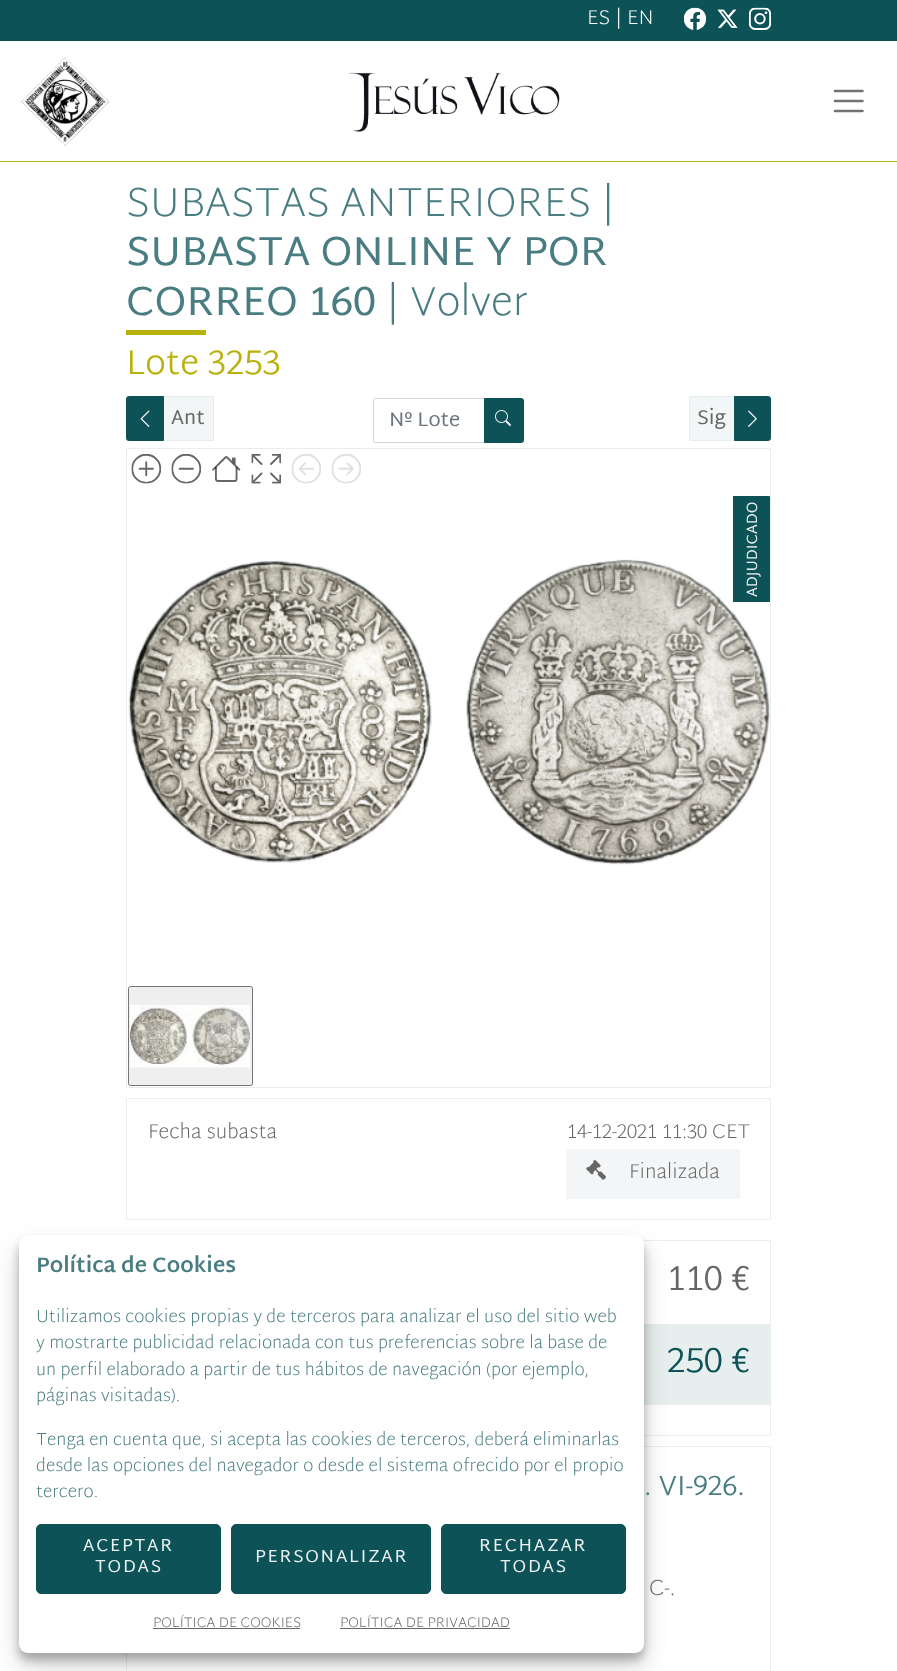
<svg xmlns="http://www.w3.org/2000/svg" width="897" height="1671">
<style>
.a{font:200 20px Martel Sans;fill:#fff}
.b{font:200 41px Martel Sans;fill:#4a7d81}
.c{font:41px Martel Sans;fill:#4a7d81}
.d{font:300 34.5px Martel Sans;fill:#b9b20e}
.e{font:20px Martel Sans;fill:#666}
.f{font:20px Martel Sans;fill:#6c757d}
.g{font:15px Martel Sans;fill:#ebf1f1}
.h{font:200 20px Martel Sans;fill:#666}
.i{font:300 35px Martel Sans;fill:#666}
.j{font:300 35px Martel Sans;fill:#0d5257}
.k{font:300 28px Martel Sans;fill:#4a7d81}
.l{font:200 22px Martel Sans;fill:#666}
.m{font:bold 21px Martel Sans;fill:#4a7d81}
.n{font:200 17.5px Martel Sans;fill:#4a7d81}
.o{font:17.5px Martel Sans;letter-spacing:1.75px;fill:#ebf1f1}
.p{font:200 14px Martel Sans;fill:#666}
</style>
<defs>
<clipPath id="clip1"><path d="M128 449h642v637H128z"/></clipPath>
</defs>
<rect width="100%" height="100%" fill="#fff"/>
<path fill="#b9b20e" d="M0 161h897v1H0z"/>
<path fill="#0d5257" d="M0 0h897v41H0z"/>
<image href="1.png" x="684" y="7" width="22" height="23"/>
<image href="2.png" x="717" y="9" width="21" height="19"/>
<image href="3.png" x="749" y="7" width="22" height="23"/>
<image href="4.png" x="21" y="57" width="89" height="90"/>
<image href="5.png" x="349" y="72" width="211" height="60"/>
<path fill="none" stroke="#737373" stroke-width="2.5" stroke-linecap="round" d="M835 91h27.5m-27.5 10h27.5m-27.5 10h27.5"/>
<path fill="#b9b20e" d="M126 330h80v5H126z"/>
<path fill="#0d5257" stroke="#0d5257" d="M128.5 396.5h35v44h-35c-1 0-2-1-2-2v-40c0-1 1-2 2-2z"/>
<image href="6.png" x="140" y="410" width="10" height="17"/>
<path fill="#0d52570d" d="M164 396h50v45H164z"/>
<path fill="none" stroke="#0d52570d" d="M163.5 396.5h50v44H163.5z"/>
<path fill="none" stroke="#ced4da" d="M375.5 398.5h109v44h-109c-1 0-2-1-2-2v-40c0-1 1-2 2-2z"/>
<path fill="#0d5257" stroke="#0d5257" d="M484.5 398.5h37c1 0 2 1 2 2v40c0 1-1 2-2 2h-37z"/>
<image href="7.png" x="495" y="410" width="16" height="16"/>
<path fill="#f3f6f7" d="M691.5 396h43.5v45h-43.5c-1.5 0-2.5-1-2.5-2.5v-40c0-1.5 1-2.5 2.5-2.5z"/>
<path fill="none" stroke="#0d52570d" d="M689.5 396.5h45v44H689.5z"/>
<path fill="#0d5257" stroke="#0d5257" d="M734.5 396.5h34c1 0 2 1 2 2v40c0 1-1 2-2 2h-34z"/>
<image href="8.png" x="748" y="410" width="9" height="17"/>
<path fill="none" stroke="#e8eeee" d="M126.5 448.5h644v639H126.5z"/>
<image href="9.png" x="131" y="454" width="30" height="30"/>
<image href="10.png" x="171" y="454" width="30" height="30"/>
<image href="11.png" x="212" y="456" width="29" height="26"/>
<image href="12.png" x="251" y="454" width="30" height="30"/>
<image href="13.png" x="291" y="454" width="30" height="30"/>
<image href="14.png" x="331" y="454" width="30" height="30"/>
<image href="15.png" x="128" y="559" width="642" height="306"/>
<g clip-path="url(#clip1)">
<path fill="#0d5257" d="M733 602v-106h35c2 0 3 1 3 2v104z"/>
</g>
<rect fill="#efefef" stroke="#767676" x="128.5" y="986.5" width="124" height="99" rx="2"/>
<image href="16.png" x="130" y="1005" width="120" height="63"/>
<path fill="none" stroke="#e8eeee" d="M126.5 1098.5h644v121H126.5z"/>
<path fill="#f3f5f6" d="M566 1149h174v50H566z"/>
<image href="17.png" x="586" y="1160" width="20" height="20"/>
<path fill="none" stroke="#e8eeee" d="M126.5 1240.5h644v195H126.5z"/>
<path fill="#e7eeee" d="M644 1324h126v81H644z"/>
<path fill="none" stroke="#e8eeee" d="M126.5 1446.5h644v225H126.5z"/>
<rect fill="#0000003b" filter="blur(4px)" x="19" y="1243" width="625" height="417" rx="9"/>
<rect fill="#00000030" filter="blur(12.5px)" x="19" y="1248" width="625" height="417" rx="9"/>
<rect fill="#fff" x="19" y="1235" width="625" height="418" rx="9"/>
<rect fill="#0d5257" stroke="#0d5257" x="36.5" y="1524.5" width="184" height="69" rx="4.5"/>
<rect fill="#0d5257" stroke="#0d5257" x="231.5" y="1524.5" width="199" height="69" rx="4.5"/>
<rect fill="#0d5257" stroke="#0d5257" x="441.5" y="1524.5" width="184" height="69" rx="4.5"/>
<path fill="#666" d="M153 1628h147v1H153z"/>
<path fill="#666" d="M340 1628h170v1H340z"/>
<text class="a" x="587" y="24">ES | EN</text>
<text class="b" x="126" y="216">SUBASTAS ANTERIORES |</text>
<text class="c" x="126" y="265">SUBASTA ONLINE Y POR</text>
<text class="c" x="126" y="315">CORREO 160</text>
<text class="b" x="386" y="315">| Volver</text>
<text class="d" x="126" y="374">Lote 3253</text>
<text class="e" x="171" y="424">Ant</text>
<text class="f" x="389" y="426">Nº Lote</text>
<text class="e" x="697" y="424">Sig</text>
<text class="g" x="757" y="597" transform="rotate(-90 757 597)">ADJUDICADO</text>
<text class="h" x="148" y="1138">Fecha subasta</text>
<text class="h" x="567" y="1138">14-12-2021 11:30 CET</text>
<text class="h" x="629" y="1178">Finalizada</text>
<text class="i" x="667" y="1290">110 €</text>
<text class="j" x="667" y="1372">250 €</text>
<text class="k" x="644" y="1495">. VI-926.</text>
<text class="l" x="649" y="1595">C-.</text>
<text class="m" x="36" y="1272">Política de Cookies</text>
<text class="n" x="36" y="1322">Utilizamos cookies propias y de terceros para analizar el uso del sitio web</text>
<text class="n" x="36" y="1348">y mostrarte publicidad relacionada con tus preferencias sobre la base de</text>
<text class="n" x="36" y="1375">un perfil elaborado a partir de tus hábitos de navegación (por ejemplo,</text>
<text class="n" x="36" y="1401">páginas visitadas).</text>
<text class="n" x="36" y="1445">Tenga en cuenta que, si acepta las cookies de terceros, deberá eliminarlas</text>
<text class="n" x="36" y="1471">desde las opciones del navegador o desde el sistema ofrecido por el propio</text>
<text class="n" x="36" y="1497">tercero.</text>
<text class="o" x="83" y="1551">ACEPTAR</text>
<text class="o" x="95" y="1572">TODAS</text>
<text class="o" x="255" y="1562">PERSONALIZAR</text>
<text class="o" x="479" y="1551">RECHAZAR</text>
<text class="o" x="500" y="1572">TODAS</text>
<text class="p" x="153" y="1627">POLÍTICA DE COOKIES</text>
<text class="p" x="340" y="1627">POLÍTICA DE PRIVACIDAD</text>
</svg>
